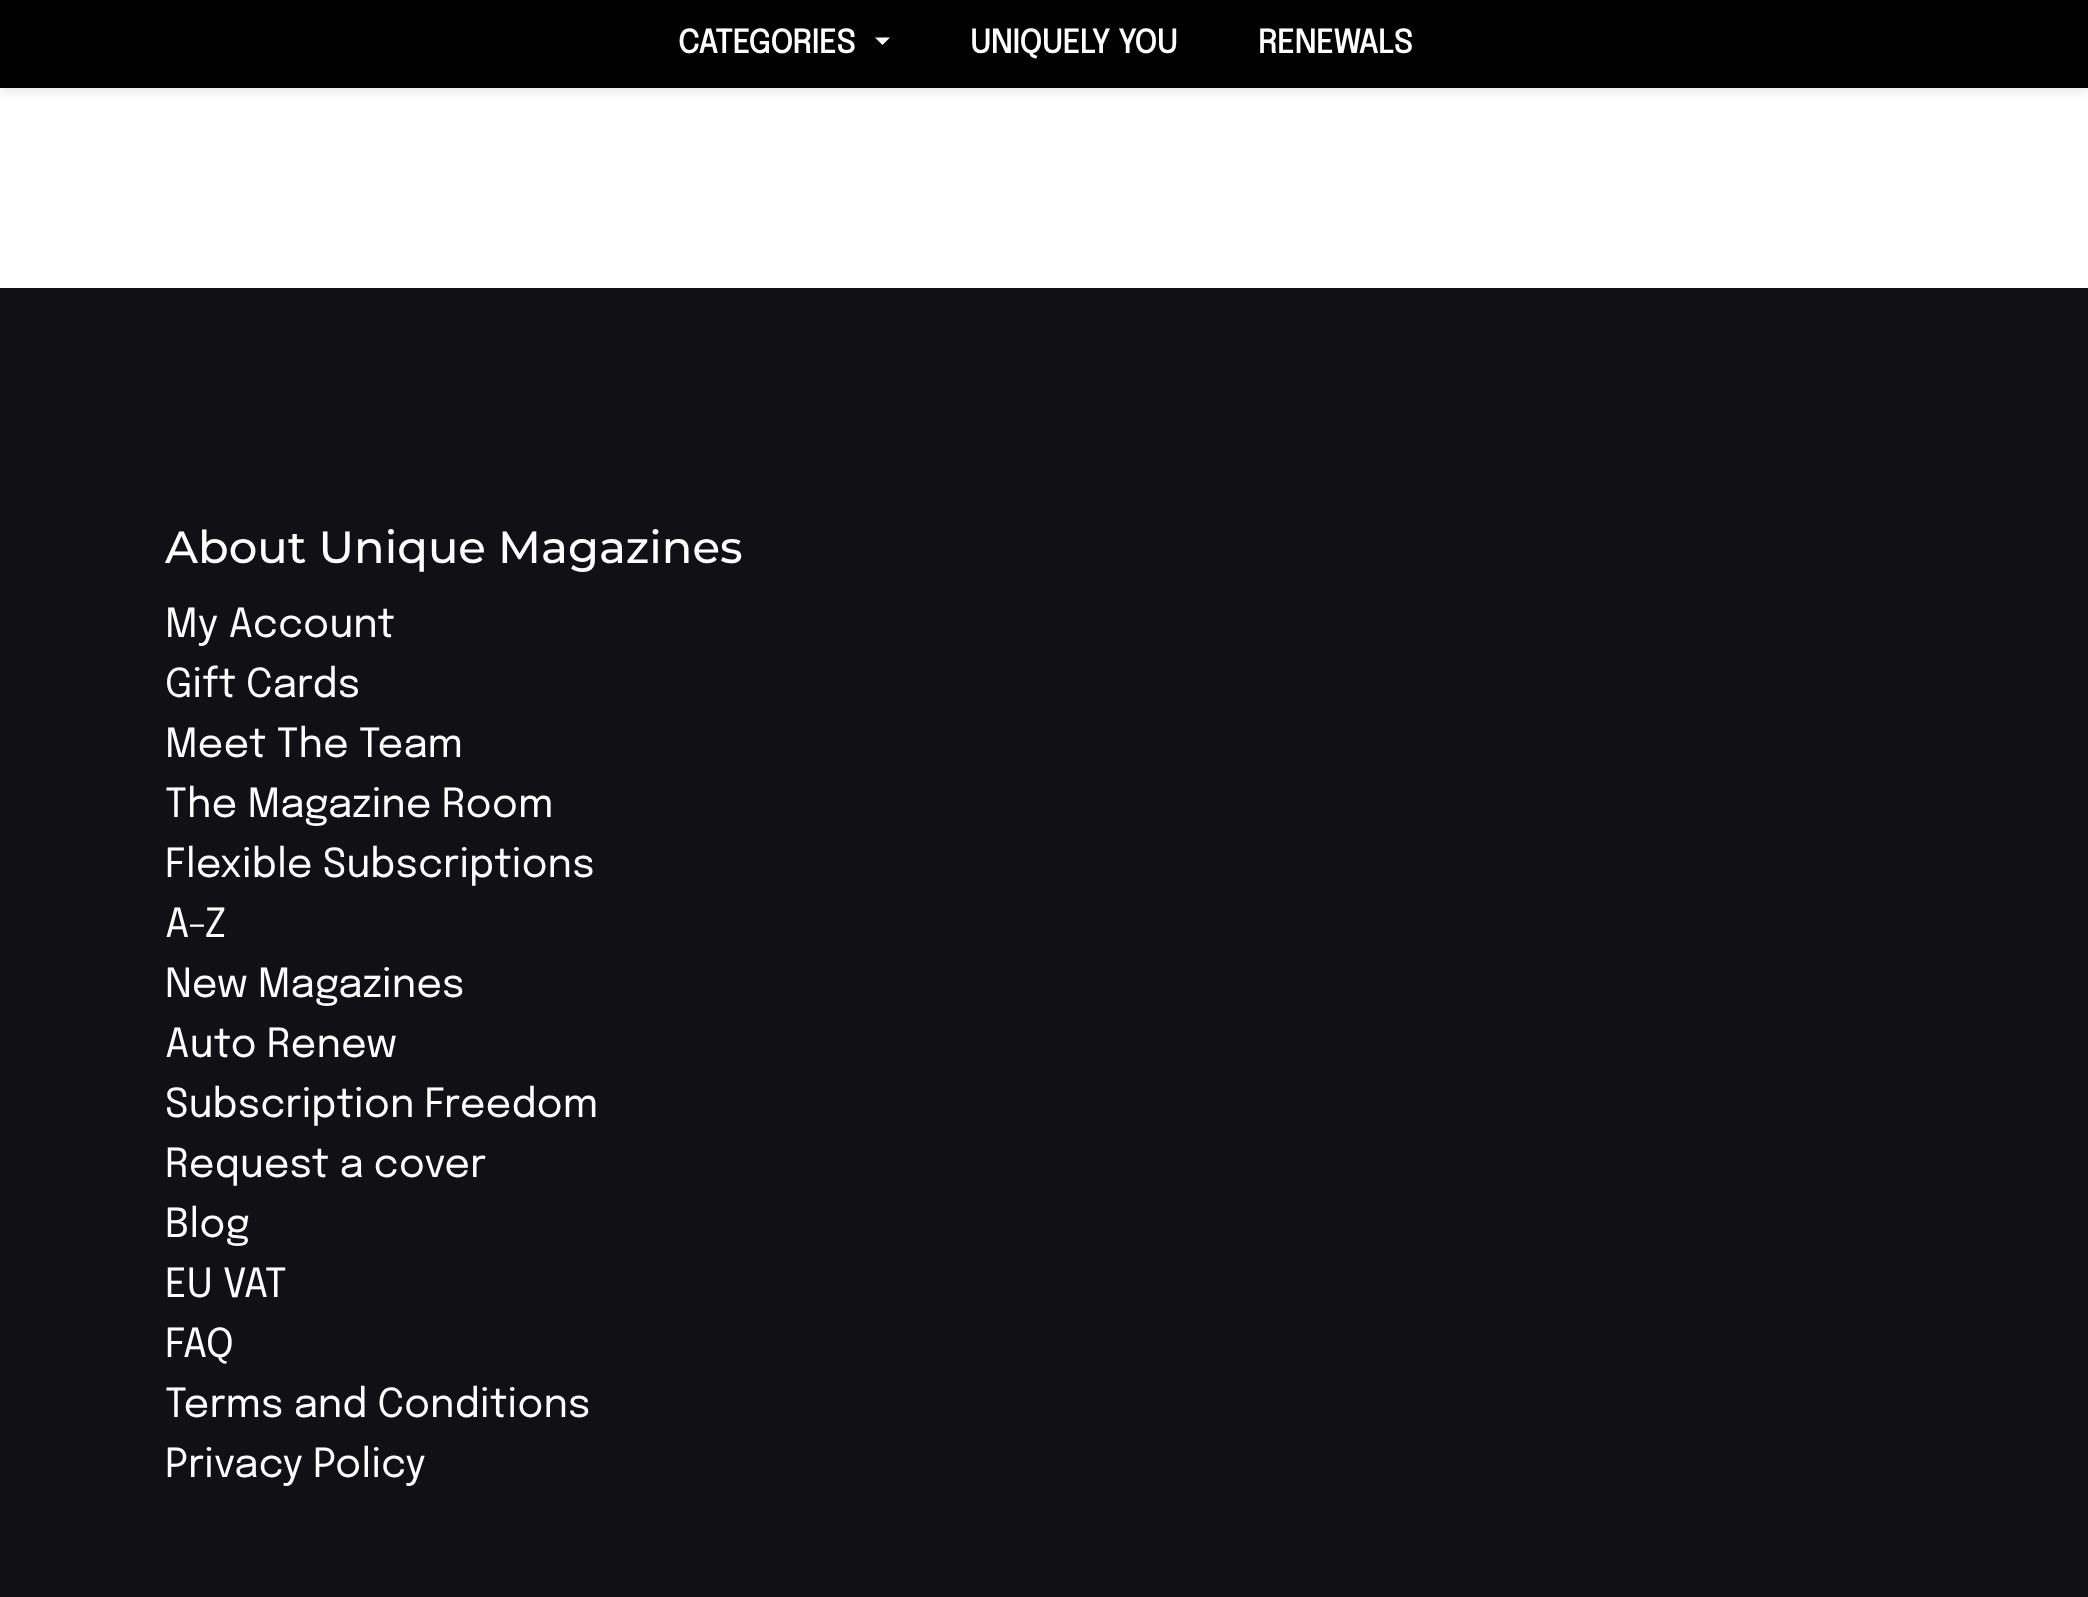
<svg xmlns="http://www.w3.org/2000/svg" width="2088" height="1597">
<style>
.a{font:bold 32px Epilogue;fill:#fff}
.b{font:500 45px Montserrat;fill:#fff}
.c{font:40px Epilogue;fill:#fff}
</style>
<rect width="100%" height="100%" fill="#fff"/>
<path fill="#00000012" filter="blur(5px)" d="M0 5h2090v88H0z"/>
<path fill="#000" d="M0 0h2088v88H0z"/>
<path fill="#fff" d="M875 37.5h15l-7.5 7.5z"/>
<path fill="#101015" d="M0 288h2088v1309H0z"/>
<text class="a" x="678" y="53">CATEGORIES</text>
<text class="a" x="970" y="53">UNIQUELY YOU</text>
<text class="a" x="1258" y="53">RENEWALS</text>
<text class="b" x="165" y="563">About Unique Magazines</text>
<text class="c" x="165" y="637">My Account</text>
<text class="c" x="165" y="697">Gift Cards</text>
<text class="c" x="165" y="757">Meet The Team</text>
<text class="c" x="165" y="817">The Magazine Room</text>
<text class="c" x="165" y="877">Flexible Subscriptions</text>
<text class="c" x="165" y="937">A-Z</text>
<text class="c" x="165" y="997">New Magazines</text>
<text class="c" x="165" y="1057">Auto Renew</text>
<text class="c" x="165" y="1117">Subscription Freedom</text>
<text class="c" x="165" y="1177">Request a cover</text>
<text class="c" x="165" y="1237">Blog</text>
<text class="c" x="165" y="1297">EU VAT</text>
<text class="c" x="165" y="1357">FAQ</text>
<text class="c" x="165" y="1417">Terms and Conditions</text>
<text class="c" x="165" y="1477">Privacy Policy</text>
</svg>
